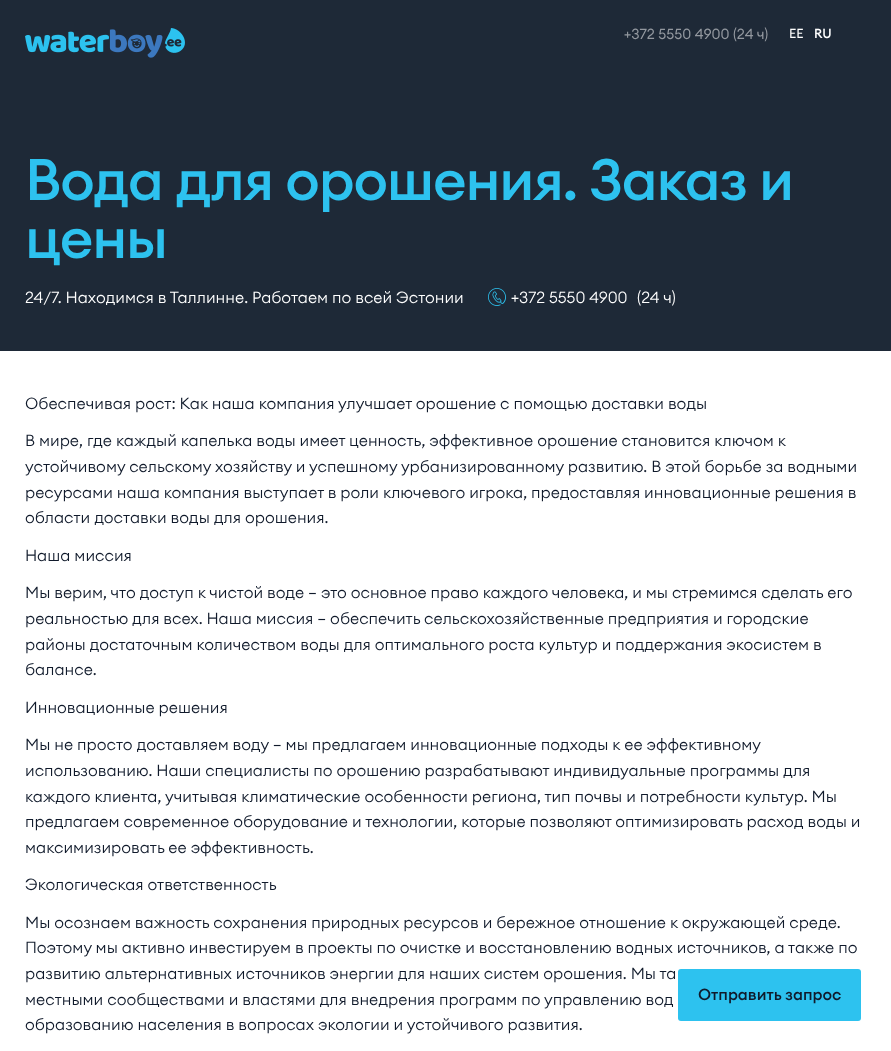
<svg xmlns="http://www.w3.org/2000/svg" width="891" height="1051">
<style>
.a{font:14.4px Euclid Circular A;fill:#93989f}
.b{font:13px Euclid Circular A;fill:#fff}
.c{font:500 13px Euclid Circular A;fill:#fff}
.d{font:500 57.6px Euclid Circular A;letter-spacing:-1.2px;fill:#2dc2ef}
.e{font:300 16px Euclid Circular A;fill:#fff}
.f{font:300 16px Euclid Circular A;fill:#101a2b}
.g{font:500 16px Euclid Circular A;fill:#101a2b}
</style>
<rect width="100%" height="100%" fill="#fff"/>
<path fill="#1e2937" d="M0 0h891v351H0z"/>
<image href="1.png" x="25" y="28" width="160" height="30"/>
<image href="2.png" x="488" y="288" width="18" height="18"/>
<rect fill="#2dc2ef" x="678" y="969" width="183" height="52" rx="3"/>
<text class="a" x="624" y="39">+372 5550 4900 (24 ч)</text>
<text class="b" x="789" y="38">EE</text>
<text class="c" x="814" y="38">RU</text>
<text class="d" x="25" y="200">Вода для орошения. Заказ и</text>
<text class="d" x="25" y="258">цены</text>
<text class="e" x="25" y="303">24/7. Находимся в Таллинне. Работаем по всей Эстонии</text>
<text class="e" x="511" y="303">+372 5550 4900</text>
<text class="e" x="637" y="303">(24 ч)</text>
<text class="f" x="25" y="409">Обеспечивая рост: Как наша компания улучшает орошение с помощью доставки воды</text>
<text class="f" x="25" y="446">В мире, где каждый капелька воды имеет ценность, эффективное орошение становится ключом к</text>
<text class="f" x="25" y="472">устойчивому сельскому хозяйству и успешному урбанизированному развитию. В этой борьбе за водными</text>
<text class="f" x="25" y="498">ресурсами наша компания выступает в роли ключевого игрока, предоставляя инновационные решения в</text>
<text class="f" x="25" y="523">области доставки воды для орошения.</text>
<text class="f" x="25" y="561">Наша миссия</text>
<text class="f" x="25" y="598">Мы верим, что доступ к чистой воде — это основное право каждого человека, и мы стремимся сделать его</text>
<text class="f" x="25" y="624">реальностью для всех. Наша миссия — обеспечить сельскохозяйственные предприятия и городские</text>
<text class="f" x="25" y="650">районы достаточным количеством воды для оптимального роста культур и поддержания экосистем в</text>
<text class="f" x="25" y="675">балансе.</text>
<text class="f" x="25" y="713">Инновационные решения</text>
<text class="f" x="25" y="750">Мы не просто доставляем воду — мы предлагаем инновационные подходы к ее эффективному</text>
<text class="f" x="25" y="776">использованию. Наши специалисты по орошению разрабатывают индивидуальные программы для</text>
<text class="f" x="25" y="802">каждого клиента, учитывая климатические особенности региона, тип почвы и потребности культур. Мы</text>
<text class="f" x="25" y="827">предлагаем современное оборудование и технологии, которые позволяют оптимизировать расход воды и</text>
<text class="f" x="25" y="853">максимизировать ее эффективность.</text>
<text class="f" x="25" y="890">Экологическая ответственность</text>
<text class="f" x="25" y="928">Мы осознаем важность сохранения природных ресурсов и бережное отношение к окружающей среде.</text>
<text class="f" x="25" y="953">Поэтому мы активно инвестируем в проекты по очистке и восстановлению водных источников, а также по</text>
<text class="f" x="25" y="979">развитию альтернативных источников энергии для наших систем орошения. Мы та</text>
<text class="f" x="25" y="1005">местными сообществами и властями для внедрения программ по управлению вод</text>
<text class="f" x="25" y="1030">образованию населения в вопросах экологии и устойчивого развития.</text>
<text class="g" x="698" y="1000">Отправить запрос</text>
</svg>
